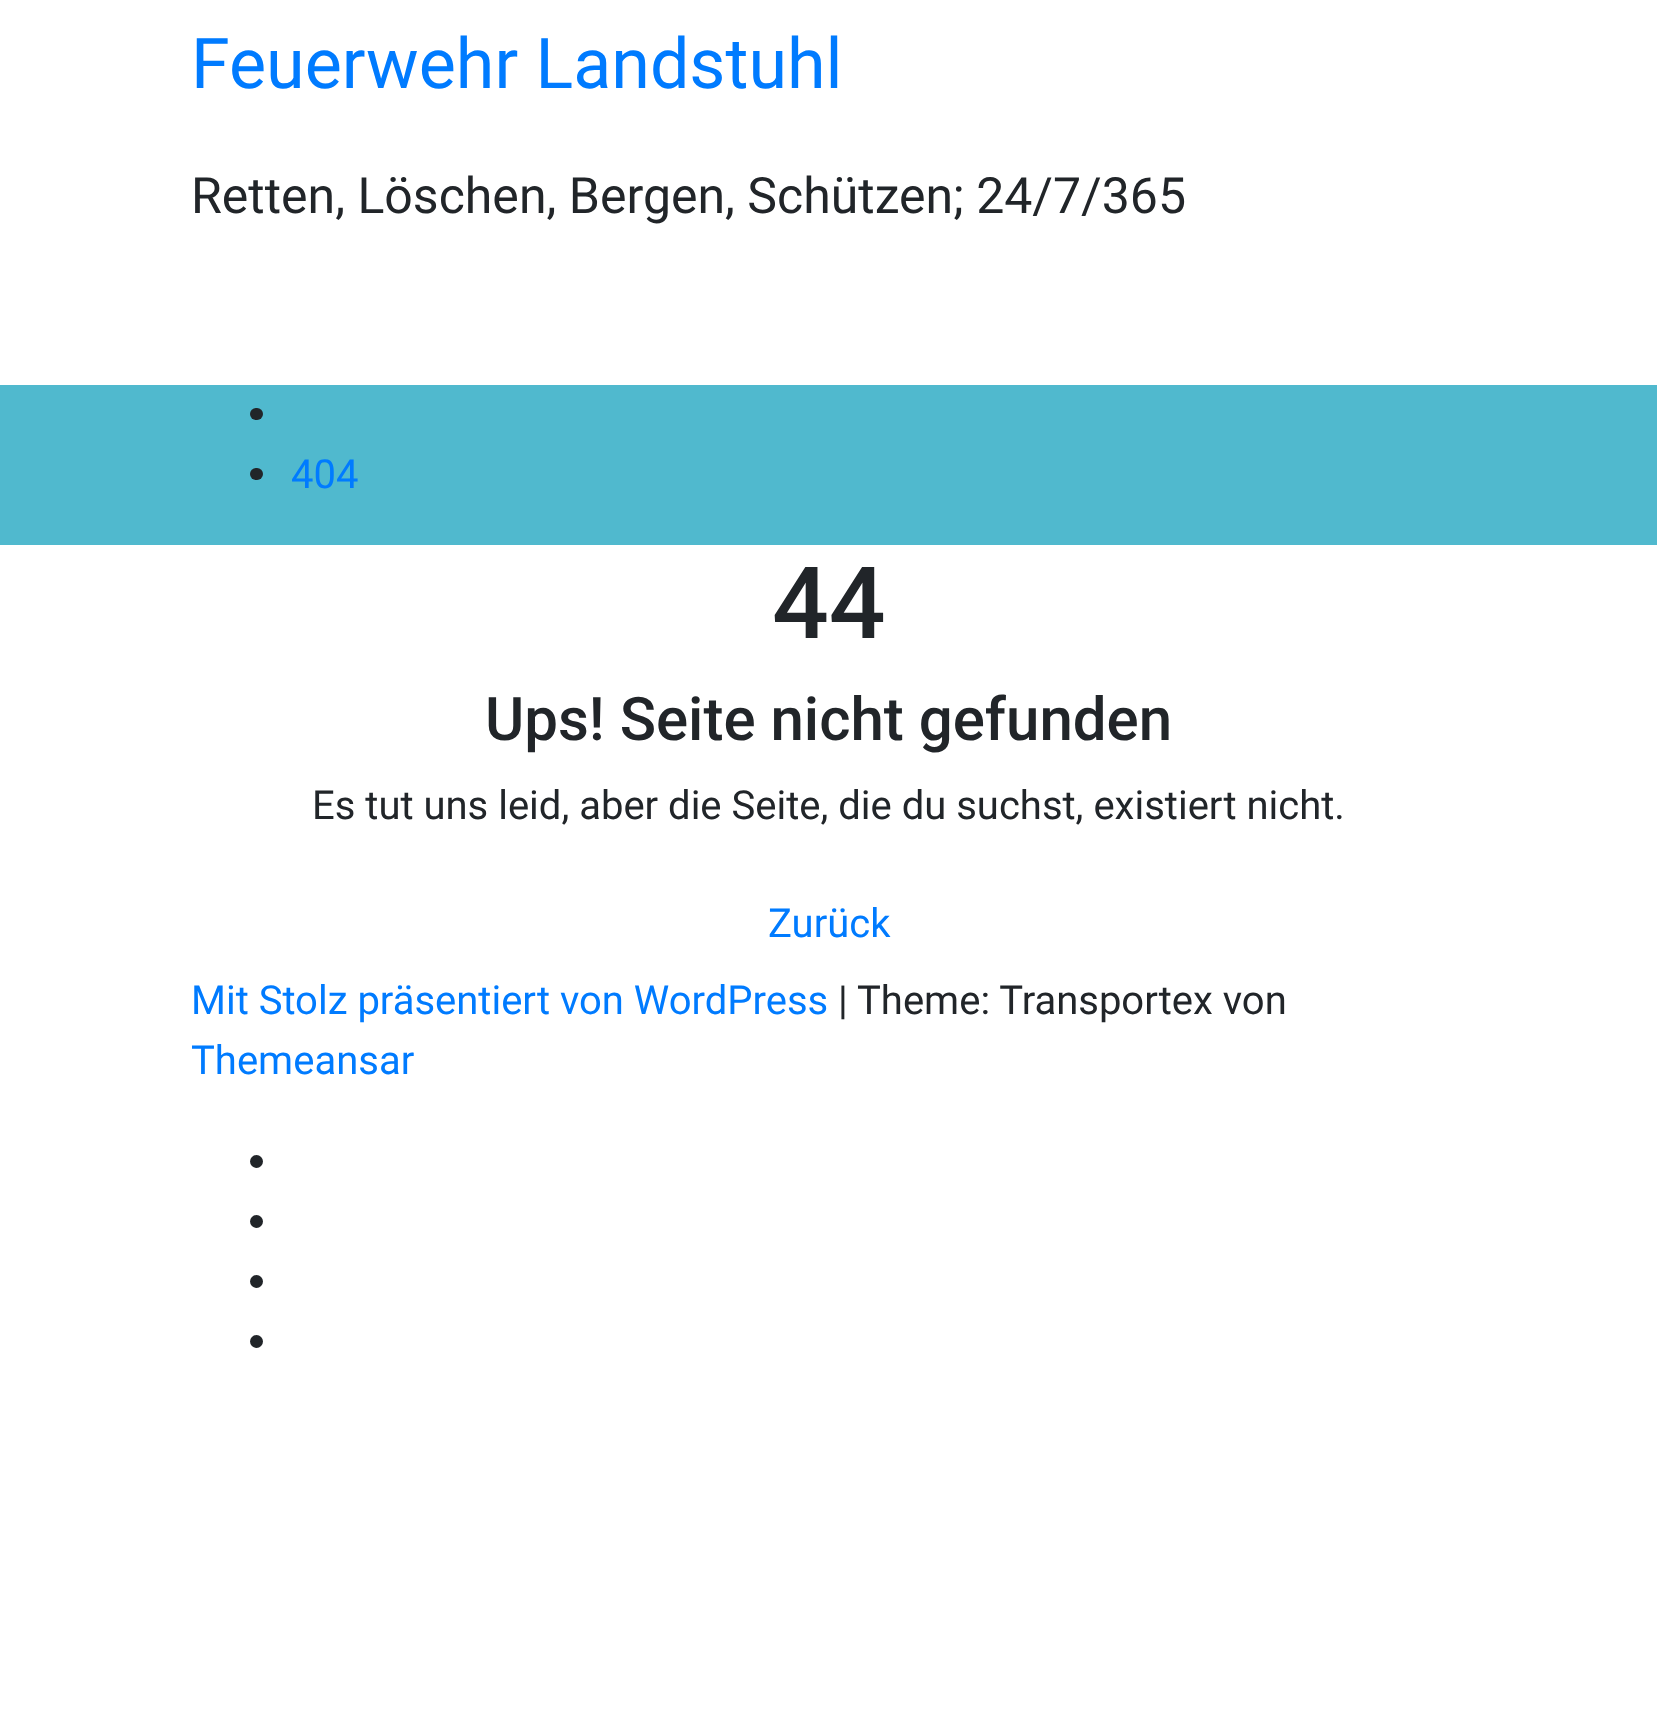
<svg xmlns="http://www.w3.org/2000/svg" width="1657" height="1728">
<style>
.a{font:70px Roboto;fill:#007bff}
.b{font:50px Roboto;fill:#212529}
.c{font:40px Roboto;fill:#007bff}
.d{font:500 100px Roboto;fill:#212529}
.e{font:500 60px Roboto;fill:#212529}
.f{font:40px Roboto;fill:#212529}
</style>
<rect width="100%" height="100%" fill="#fff"/>
<path fill="#50b9ce" d="M0 385h1657v160H0z"/>
<rect fill="#212529" x="250" y="408" width="13" height="12" rx="6"/>
<rect fill="#212529" x="250" y="468" width="13" height="12" rx="6"/>
<circle fill="#212529" cx="256.5" cy="1161.5" r="6.5"/>
<circle fill="#212529" cx="256.5" cy="1221.5" r="6.5"/>
<circle fill="#212529" cx="256.5" cy="1281.5" r="6.5"/>
<circle fill="#212529" cx="256.5" cy="1341.5" r="6.5"/>
<text class="a" x="191" y="88">Feuerwehr Landstuhl</text>
<text class="b" x="191" y="213">Retten, Löschen, Bergen, Schützen; 24/7/365</text>
<text class="c" x="291" y="488">404</text>
<text class="d" x="772" y="638">44</text>
<text class="e" x="485" y="740">Ups! Seite nicht gefunden</text>
<text class="f" x="312" y="819">Es tut uns leid, aber die Seite, die du suchst, existiert nicht.</text>
<text class="c" x="768" y="937">Zurück</text>
<text class="c" x="191" y="1014">Mit Stolz präsentiert von WordPress</text>
<text class="f" x="838" y="1014">|</text>
<text class="f" x="857" y="1014">Theme: Transportex von</text>
<text class="c" x="191" y="1074">Themeansar</text>
</svg>
